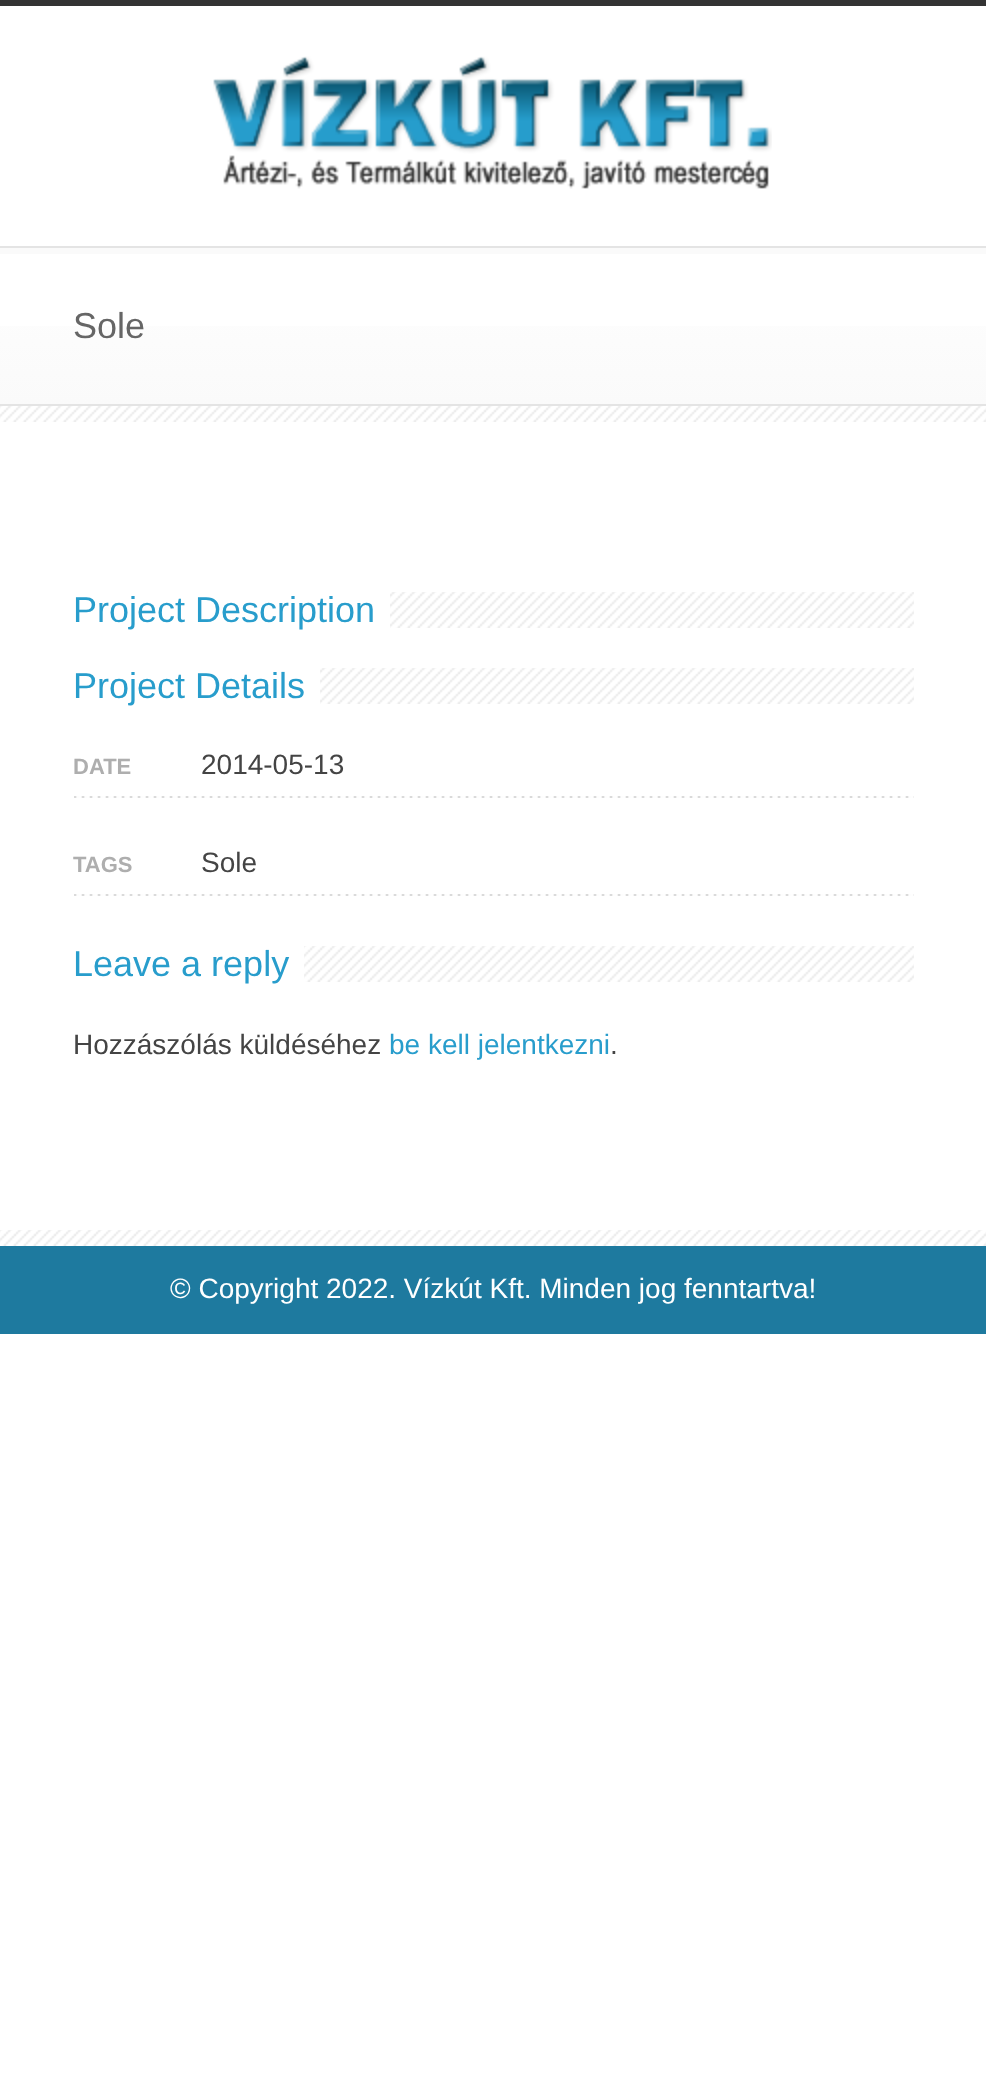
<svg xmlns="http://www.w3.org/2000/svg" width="986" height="2099">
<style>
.a{font:36px Liberation Sans;fill:#666}
.b{font:36px Liberation Sans;fill:#289dcc}
.c{font:bold 22px Liberation Sans;fill:#aeaeae}
.d{font:28px Liberation Sans;fill:#444}
.e{font:28px Liberation Sans;fill:#289dcc}
.f{font:28px Liberation Sans;fill:#fff}
</style>
<defs>
<linearGradient id="g1" gradientUnits="userSpaceOnUse" x1="493" y1="404" x2="493" y2="248"><stop offset="0" stop-color="#fafafa"/><stop offset="1" stop-color="#fff"/></linearGradient>
</defs>
<rect width="100%" height="100%" fill="#fff"/>
<path fill="#333" d="M0 0h986v6H0z"/>
<image href="1.png" x="213" y="56" width="559" height="133"/>
<path fill="url(#g1)" d="M0 326h986v78H0z"/>
<path fill="#fafafa" d="M0 248h986v6H0z"/>
<path fill="#e4e4e4" d="M0 246h986v2H0z"/>
<path fill="#e4e4e4" d="M0 404h986v2H0z"/>
<image href="2.png" x="0" y="406" width="986" height="16"/>
<image href="3.png" x="390" y="592" width="524" height="36"/>
<image href="4.png" x="320" y="668" width="594" height="36"/>
<image href="5.png" x="74" y="796" width="840" height="2"/>
<image href="5.png" x="74" y="894" width="840" height="2"/>
<image href="6.png" x="304" y="946" width="610" height="36"/>
<image href="2.png" x="0" y="1230" width="986" height="16"/>
<path fill="#1e7a9f" d="M0 1246h986v88H0z"/>
<text class="a" x="73" y="338">Sole</text>
<text class="b" x="73" y="622">Project Description</text>
<text class="b" x="73" y="698">Project Details</text>
<text class="c" x="73" y="774">DATE</text>
<text class="d" x="201" y="774">2014-05-13</text>
<text class="c" x="73" y="872">TAGS</text>
<text class="d" x="201" y="872">Sole</text>
<text class="b" x="73" y="976">Leave a reply</text>
<text class="d" x="73" y="1054">Hozzászólás küldéséhez</text>
<text class="e" x="389" y="1054">be kell jelentkezni</text>
<text class="d" x="610" y="1054">.</text>
<text class="f" x="170" y="1298">© Copyright 2022. Vízkút Kft. Minden jog fenntartva!</text>
</svg>
